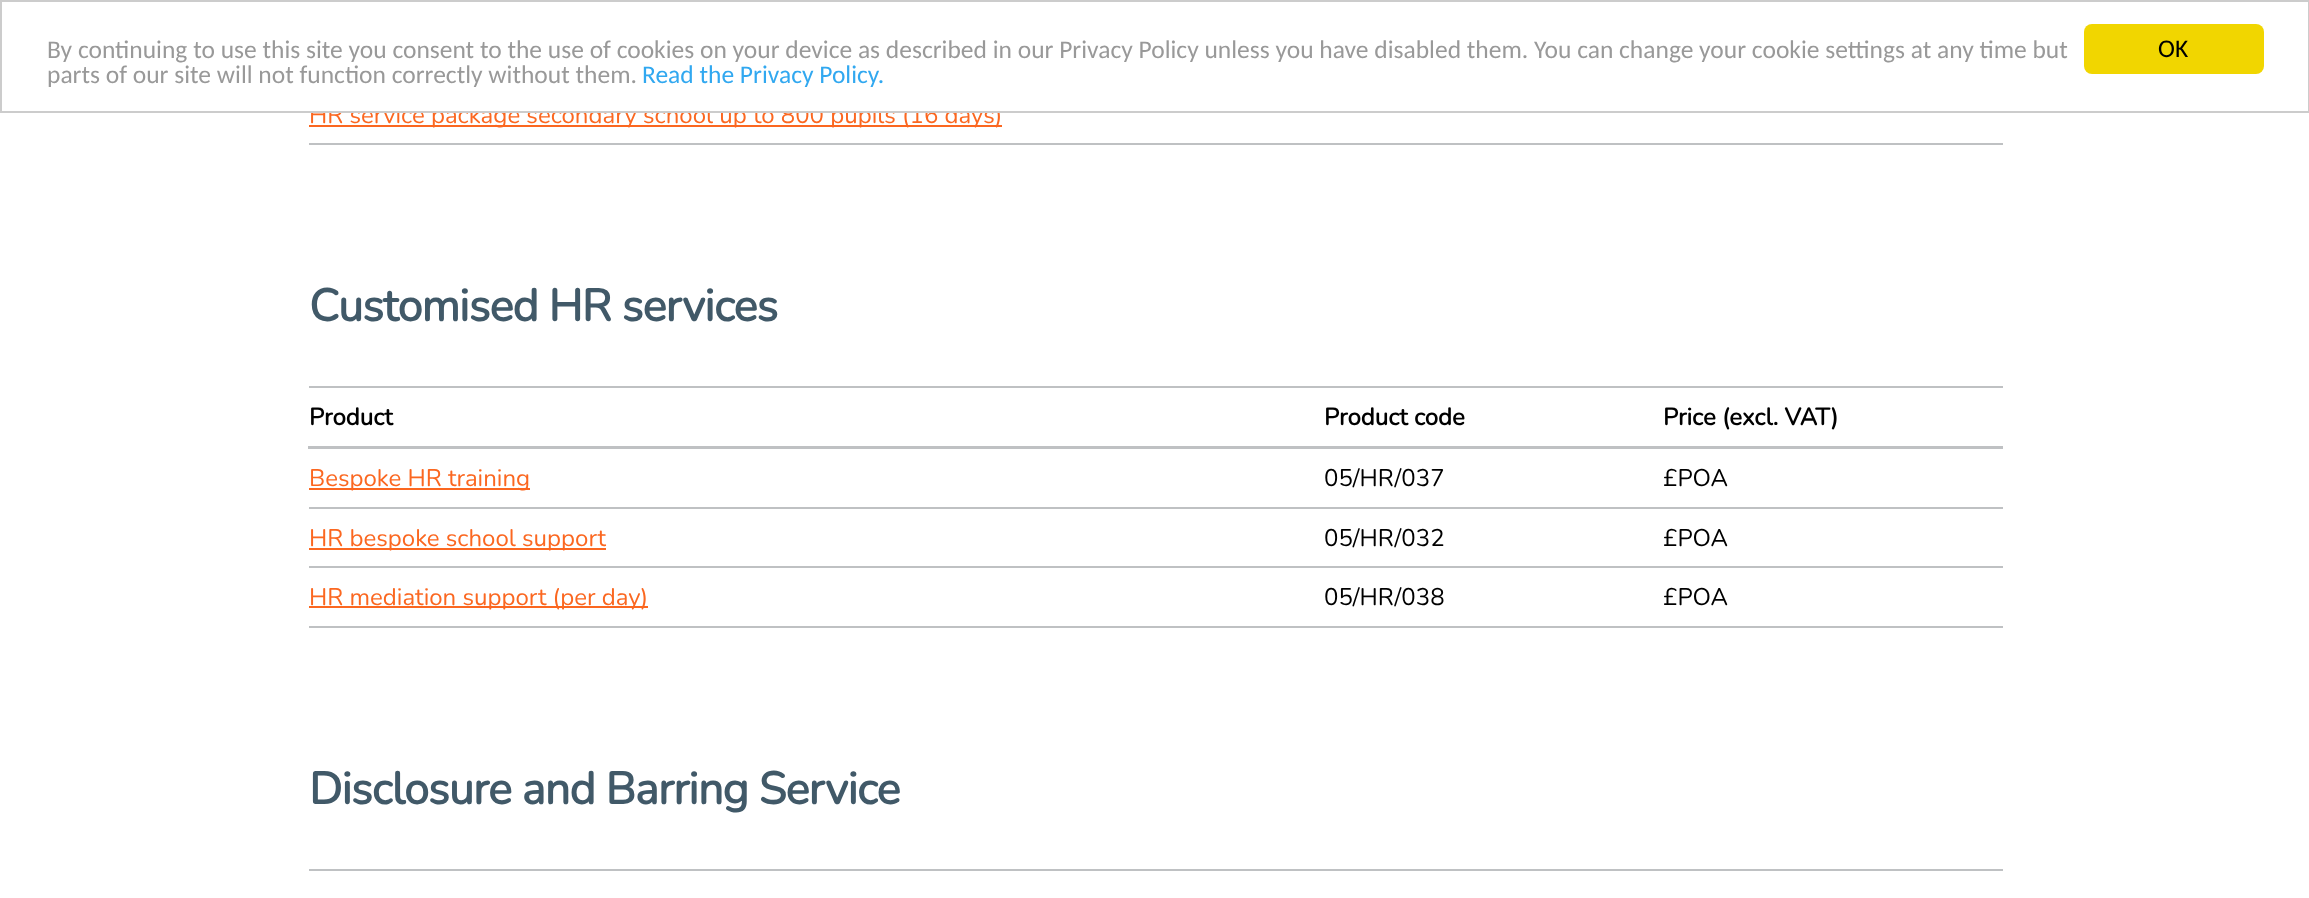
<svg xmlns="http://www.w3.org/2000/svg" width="2309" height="898">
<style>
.a{font:200 24px Nunito;fill:#fb6720}
.b{font:25.5px Carlito;fill:#31a8f0}
.c{font:25.5px Carlito;fill:#999}
.d{font:25.5px Carlito;fill:#000}
.e{font:bold 45px Nunito;letter-spacing:-0.9px;fill:#415968}
.f{font:bold 24px Nunito;fill:#000}
.g{font:200 24px Nunito;fill:#000}
</style>
<rect width="100%" height="100%" fill="#fff"/>
<path fill="#fb6720" d="M309 125h693v2H309z"/>
<path fill="#bfc1c3" d="M309 143h1694v2H309z"/>
<path fill="#bfc1c3" d="M309 386h1694v2H309z"/>
<path fill="#bfc1c3" d="M308 446h1695v3H308z"/>
<path fill="#fb6720" d="M309 488h221v2H309z"/>
<path fill="#bfc1c3" d="M309 507h1694v2H309z"/>
<path fill="#fb6720" d="M309 548h297v2H309z"/>
<path fill="#bfc1c3" d="M309 566h1694v2H309z"/>
<path fill="#fb6720" d="M309 606h339v2H309z"/>
<path fill="#bfc1c3" d="M309 626h1694v2H309z"/>
<path fill="#bfc1c3" d="M309 869h1694v2H309z"/>
<text class="a" x="309" y="123">HR service package secondary school up to 800 pupils (16 days)</text>
<path fill="#fff" d="M311 105h689v6H311z"/>
<path fill="none" stroke="#ccc" stroke-width="2" d="M1 1h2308v111H1z"/>
<text class="b" x="642" y="83">Read the Privacy Policy.</text>
<text class="c" x="47" y="83">parts of our site will not function correctly without them.</text>
<text class="c" x="47" y="58">By continuing to use this site you consent to the use of cookies on your device as described in our Privacy Policy unless you have disabled them. You can change your cookie settings at any time but</text>
<rect fill="#f1d600" x="2084" y="24" width="180" height="50" rx="8"/>
<text class="d" x="2158" y="57">OK</text>
<text class="e" x="309" y="321">Customised HR services</text>
<text class="f" x="309" y="425">Product</text>
<text class="f" x="1324" y="425">Product code</text>
<text class="f" x="1663" y="425">Price (excl. VAT)</text>
<text class="a" x="309" y="486">Bespoke HR training</text>
<text class="g" x="1324" y="486">05/HR/037</text>
<text class="g" x="1663" y="486">£POA</text>
<text class="a" x="309" y="546">HR bespoke school support</text>
<text class="g" x="1324" y="546">05/HR/032</text>
<text class="g" x="1663" y="546">£POA</text>
<text class="a" x="309" y="605">HR mediation support (per day)</text>
<text class="g" x="1324" y="605">05/HR/038</text>
<text class="g" x="1663" y="605">£POA</text>
<text class="e" x="309" y="804">Disclosure and Barring Service</text>
</svg>
